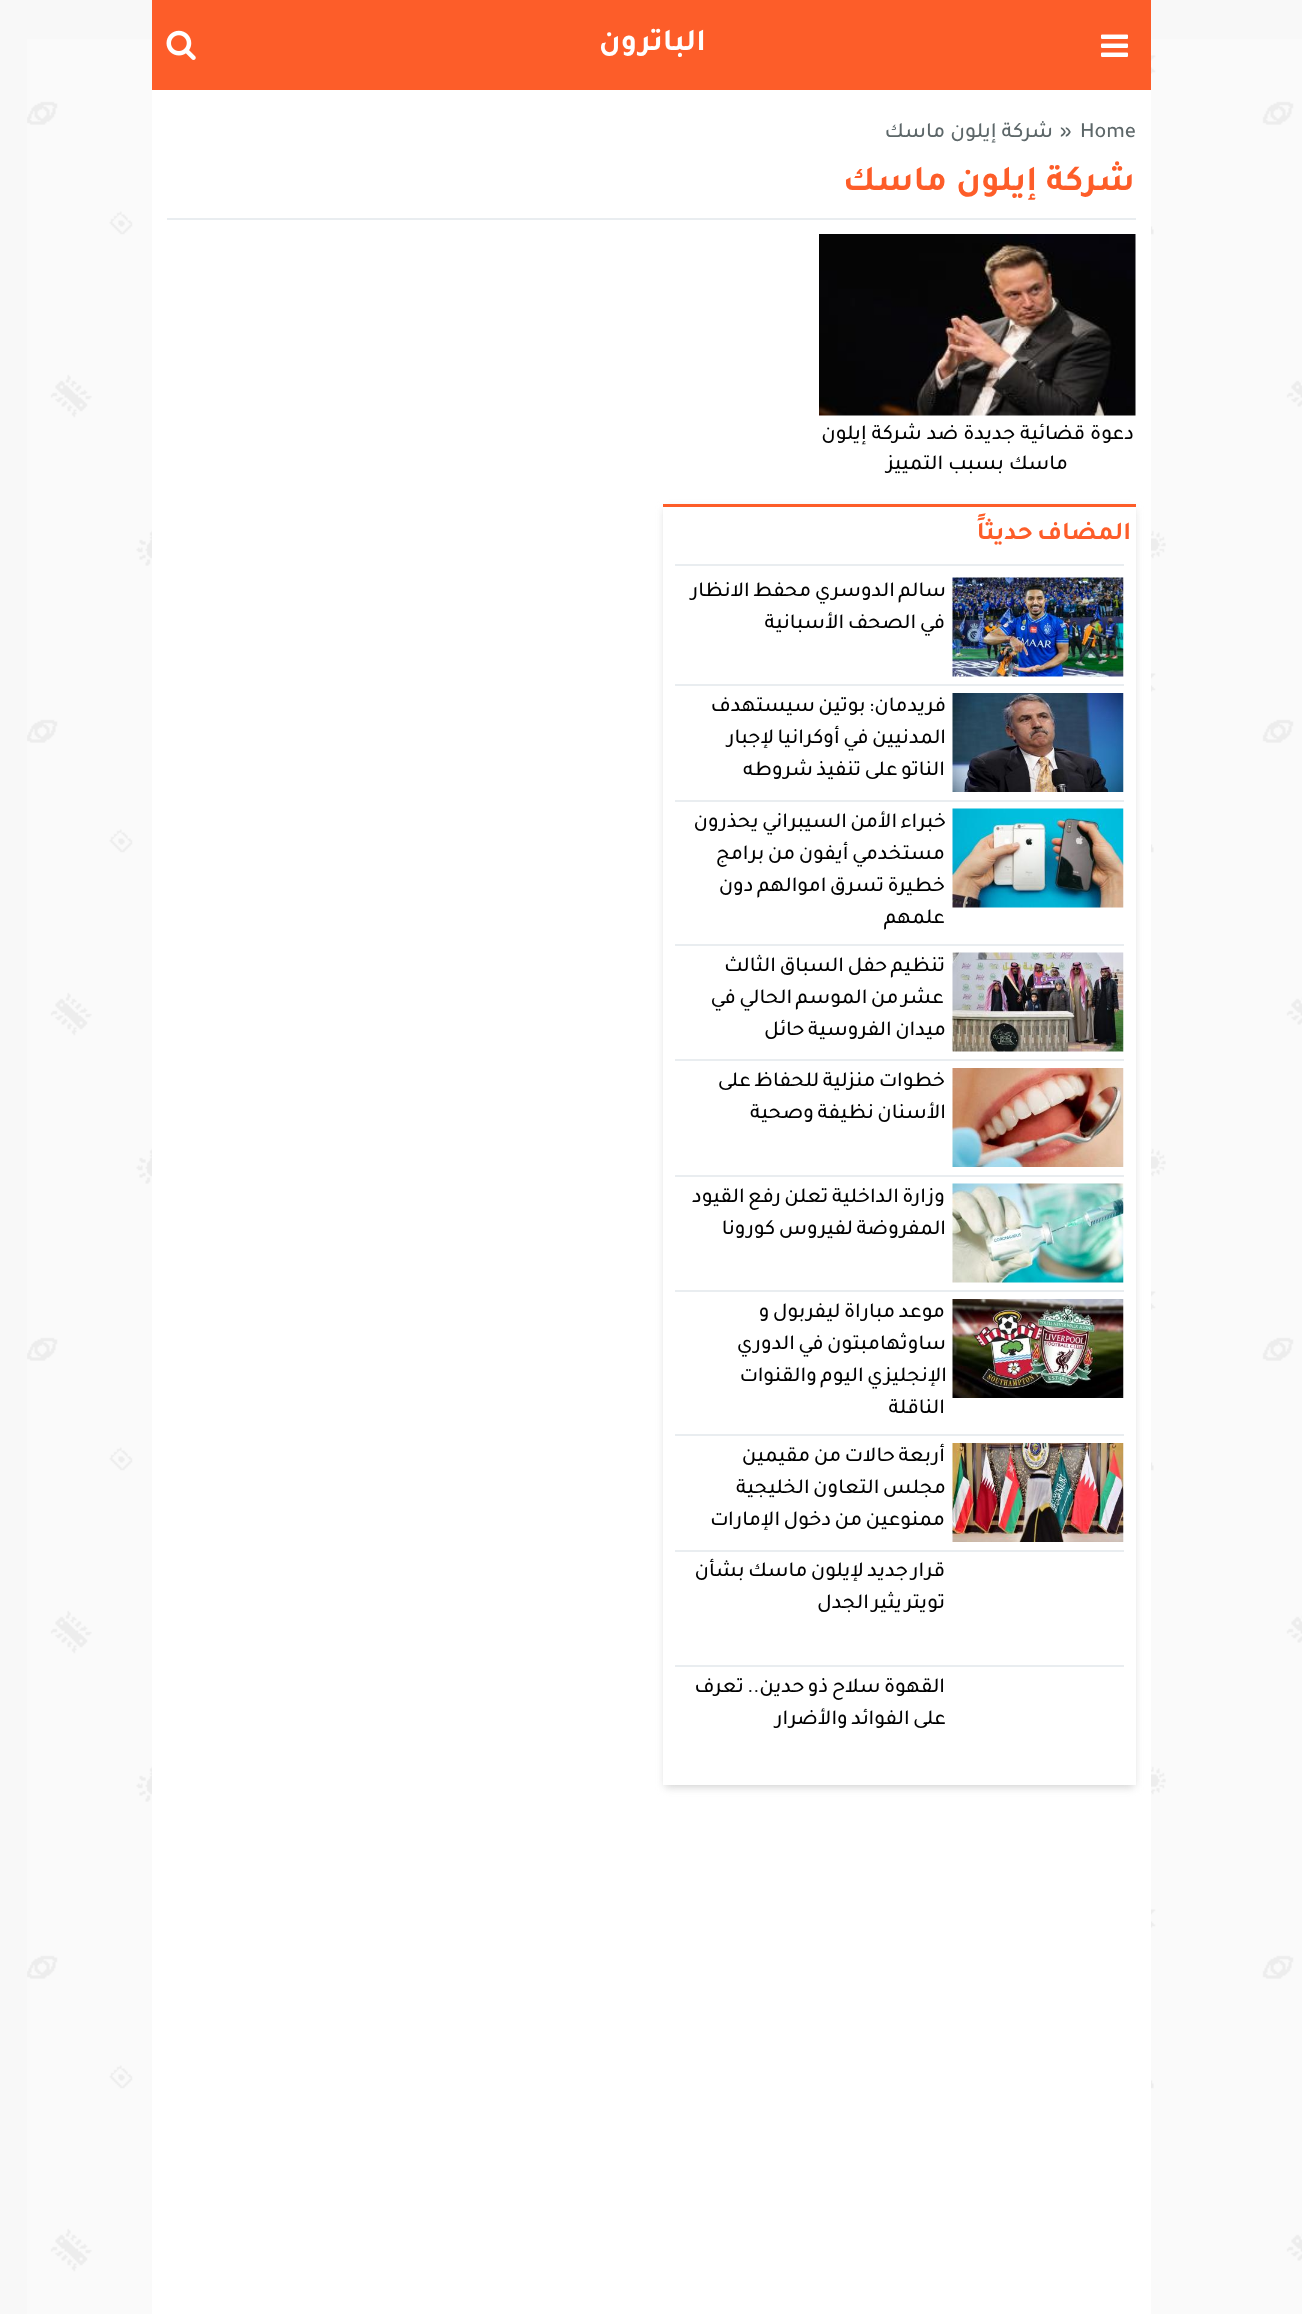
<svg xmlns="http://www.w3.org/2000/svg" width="1302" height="2314">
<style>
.a{font:bold 31.5px Tajawal;direction:rtl;fill:#fff}
.b{font:500 21.75px Tajawal;fill:#5d6769}
.c{font:500 21.75px Tajawal;direction:rtl;fill:#5d6769}
.d{font:bold 36px Tajawal;direction:rtl;fill:#fd5d29}
.e{font:500 21.25px Tajawal;direction:rtl;fill:#000}
.f{font:bold 25.5px Tajawal;letter-spacing:0.75px;direction:rtl;fill:#fd5d29}
.g{font:500 21.25px Tajawal;letter-spacing:0.25px;direction:rtl;fill:#000}
</style>
<rect width="100%" height="100%" fill="#f8f8f8"/>
<image href="1.png" x="27" y="39" width="1275" height="2275"/>
<path fill="#fd5d29" d="M152 0h999v90H152z"/>
<image href="2.png" x="1101" y="34" width="27" height="23"/>
<image href="3.png" x="166" y="30" width="30" height="30"/>
<path fill="#fff" d="M152 90h999v2224H152z"/>
<path fill="#e9edf0" d="M167 218h969v2H167z"/>
<image href="4.png" x="819" y="234" width="317" height="182"/>
<path fill="#d1d1d1" filter="blur(4px)" d="M665 509h469v1278H665z"/>
<path fill="#fff" d="M663 507h473v1278H663z"/>
<path fill="#fd5d29" d="M663 504h473v3H663z"/>
<path fill="#e9edf0" d="M675 564h449v2H675z"/>
<path fill="#e9edf0" d="M675 684h449v2H675z"/>
<image href="5.png" x="952" y="577" width="172" height="100"/>
<path fill="#e9edf0" d="M675 800h449v2H675z"/>
<image href="6.png" x="952" y="693" width="172" height="99"/>
<path fill="#e9edf0" d="M675 944h449v2H675z"/>
<image href="7.png" x="952" y="808" width="172" height="100"/>
<path fill="#e9edf0" d="M675 1059h449v2H675z"/>
<image href="8.png" x="952" y="952" width="172" height="100"/>
<path fill="#e9edf0" d="M675 1175h449v2H675z"/>
<image href="9.png" x="952" y="1068" width="172" height="99"/>
<path fill="#e9edf0" d="M675 1290h449v2H675z"/>
<image href="10.png" x="952" y="1183" width="172" height="100"/>
<path fill="#e9edf0" d="M675 1434h449v2H675z"/>
<image href="11.png" x="952" y="1299" width="172" height="99"/>
<path fill="#e9edf0" d="M675 1550h449v2H675z"/>
<image href="12.png" x="952" y="1443" width="172" height="99"/>
<path fill="#e9edf0" d="M675 1665h449v2H675z"/>
<text class="a" x="706" y="50">الباترون</text>
<text class="b" x="1080" y="137">Home</text>
<text class="b" x="1060" y="137">»</text>
<text class="c" x="1053" y="137">شركة إيلون ماسك</text>
<text class="d" x="1135" y="190">شركة إيلون ماسك</text>
<text class="e" x="1134" y="439">دعوة قضائية جديدة ضد شركة إيلون</text>
<text class="e" x="1068" y="469">ماسك بسبب التمييز</text>
<text class="f" x="1131" y="539" word-spacing="-2">المضاف حديثاً</text>
<text class="g" x="946" y="596" word-spacing="-1.5">سالم الدوسري محفط الانظار</text>
<text class="g" x="945" y="628" word-spacing="-1.5">في الصحف الأسبانية</text>
<text class="g" x="946" y="711" word-spacing="-1.5">فريدمان: بوتين سيستهدف</text>
<text class="g" x="946" y="743" word-spacing="-1.5">المدنيين في أوكرانيا لإجبار</text>
<text class="g" x="945" y="775" word-spacing="-1.5">الناتو على تنفيذ شروطه</text>
<text class="g" x="946" y="827" word-spacing="-1.5">خبراء الأمن السيبراني يحذرون</text>
<text class="g" x="945" y="859" word-spacing="-1.5">مستخدمي أيفون من برامج</text>
<text class="g" x="945" y="891" word-spacing="-1.5">خطيرة تسرق اموالهم دون</text>
<text class="g" x="945" y="923">علمهم</text>
<text class="g" x="945" y="971" word-spacing="-1.5">تنظيم حفل السباق الثالث</text>
<text class="g" x="944" y="1003" word-spacing="-1.5">عشر من الموسم الحالي في</text>
<text class="g" x="946" y="1035" word-spacing="-1.5">ميدان الفروسية حائل</text>
<text class="g" x="945" y="1086" word-spacing="-1.5">خطوات منزلية للحفاظ على</text>
<text class="g" x="946" y="1118" word-spacing="-1.5">الأسنان نظيفة وصحية</text>
<text class="g" x="945" y="1202" word-spacing="-1.5">وزارة الداخلية تعلن رفع القيود</text>
<text class="g" x="946" y="1234" word-spacing="-1.5">المفروضة لفيروس كورونا</text>
<text class="g" x="945" y="1317" word-spacing="-1.5">موعد مباراة ليفربول و</text>
<text class="g" x="946" y="1349" word-spacing="-1.5">ساوثهامبتون في الدوري</text>
<text class="g" x="947" y="1381" word-spacing="-1.5">الإنجليزي اليوم والقنوات</text>
<text class="g" x="945" y="1413">الناقلة</text>
<text class="g" x="945" y="1461" word-spacing="-1.5">أربعة حالات من مقيمين</text>
<text class="g" x="946" y="1493" word-spacing="-1.5">مجلس التعاون الخليجية</text>
<text class="g" x="945" y="1525" word-spacing="-1.5">ممنوعين من دخول الإمارات</text>
<text class="g" x="945" y="1576" word-spacing="-1.5">قرار جديد لإيلون ماسك بشأن</text>
<text class="g" x="945" y="1608" word-spacing="-1.5">تويتر يثير الجدل</text>
<text class="g" x="945" y="1692" word-spacing="-1.5">القهوة سلاح ذو حدين.. تعرف</text>
<text class="g" x="946" y="1724" word-spacing="-1.5">على الفوائد والأضرار</text>
</svg>
